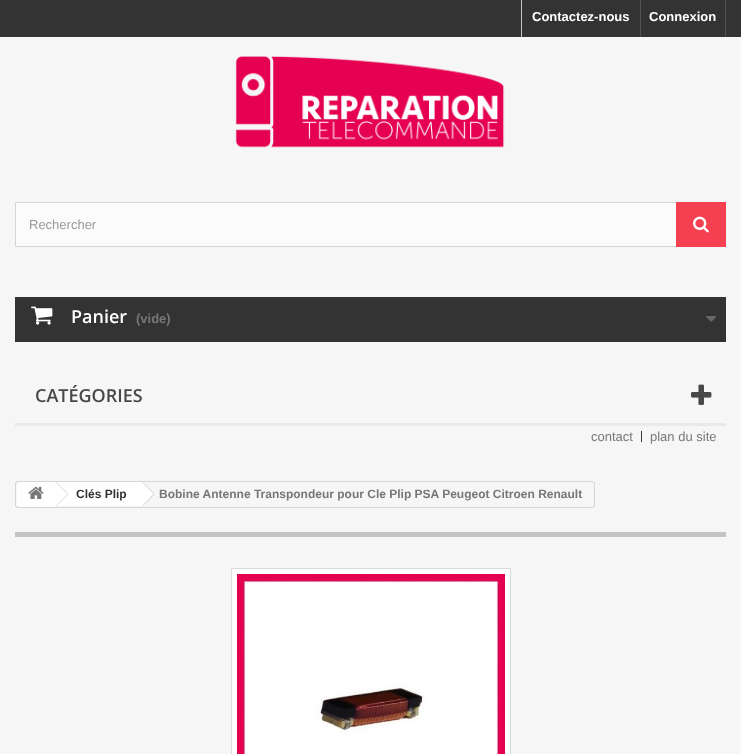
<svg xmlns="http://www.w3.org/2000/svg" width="741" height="754">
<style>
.a{font:bold 13px Liberation Sans;fill:#fff}
.b{font:13px Liberation Sans;fill:#999}
.c{font:600 18px Open Sans;fill:#fff}
.d{font:bold 13px Liberation Sans;fill:#777}
.e{font:600 18px Open Sans;fill:#484848}
.f{font:13px Liberation Sans;fill:#777}
.g{font:bold 12px Liberation Sans;fill:#333}
.h{font:bold 12px Liberation Sans;fill:#777}
</style>
<rect width="100%" height="100%" fill="#f6f6f6"/>
<path fill="#333" d="M0 0h741v37H0z"/>
<path fill="#c6c6c6" d="M521 0h1v37H521z"/>
<path fill="#515151" d="M725 0h1v37H725z"/>
<path fill="#515151" d="M640 0h1v37H640z"/>
<image href="1.png" x="235" y="56" width="270" height="92"/>
<path fill="#fbfbfb" d="M16 203h660v43H16z"/>
<path fill="none" stroke="#d6d4d4" d="M15.5 202.5h710v44H15.5z"/>
<path fill="#f44051" d="M676 202h50v45H676z"/>
<image href="2.png" x="693" y="216" width="16" height="17"/>
<path fill="#333" d="M15 297h711v45H15z"/>
<image href="3.png" x="31" y="306" width="22" height="19"/>
<image href="4.png" x="706" y="316" width="11" height="6"/>
<path fill="#e9e9e9" d="M15 423h711v3H15z"/>
<image href="5.png" x="691" y="384" width="21" height="21"/>
<path fill="#333" d="M641 431h1v11H641z"/>
<rect fill="none" stroke="#d6d4d4" x="15.5" y="481.5" width="579" height="26" rx="2.5"/>
<path fill="#fff" d="M20 482h35v25h-35c-1.5 0-3-1.5-3-3v-19c0-1.5 1.5-3 3-3z"/>
<image href="6.png" x="28" y="486" width="16" height="13"/>
<path fill="#fff" d="M55 482h86v24H55z"/>
<path fill="#d6d4d4" d="M56.5 482l11.5 11.5l-.5 .5l-11.5-11.5zm11 12l.5 .5l-11.5 11.5l-.5-.5z"/>
<path fill="#fff" d="M144 482.5l9.5 10c1 1 1 2 0 3l-9.5 10c-1 .5-2.5 .5-3 0l-10-10c-.5-1-.5-2 0-3l10-10c.5-.5 2-.5 3 0z"/>
<path fill="#d6d4d4" d="M143 482l11.5 11.5l-1 .5l-11-11.5zm10.5 12l1 .5l-11.5 11.5l-.5-.5z"/>
<path fill="#c4c4c4" d="M15 532h711v5H15z"/>
<path fill="#fff" stroke="#dbdbdb" d="M231.5 568.5h279v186H231.5z"/>
<image href="7.png" x="237" y="574" width="268" height="180"/>
<text class="a" x="532" y="21">Contactez-nous</text>
<text class="a" x="649" y="21">Connexion</text>
<text class="b" x="29" y="229">Rechercher</text>
<text class="c" x="71" y="323">Panier</text>
<text class="d" x="136" y="323">(vide)</text>
<text class="e" x="35" y="402">CATÉGORIES</text>
<text class="f" x="591" y="441">contact</text>
<text class="f" x="650" y="441">plan du site</text>
<text class="g" x="76" y="498">Clés Plip</text>
<text class="h" x="159" y="498">Bobine Antenne Transpondeur pour Cle Plip PSA Peugeot Citroen Renault</text>
</svg>
